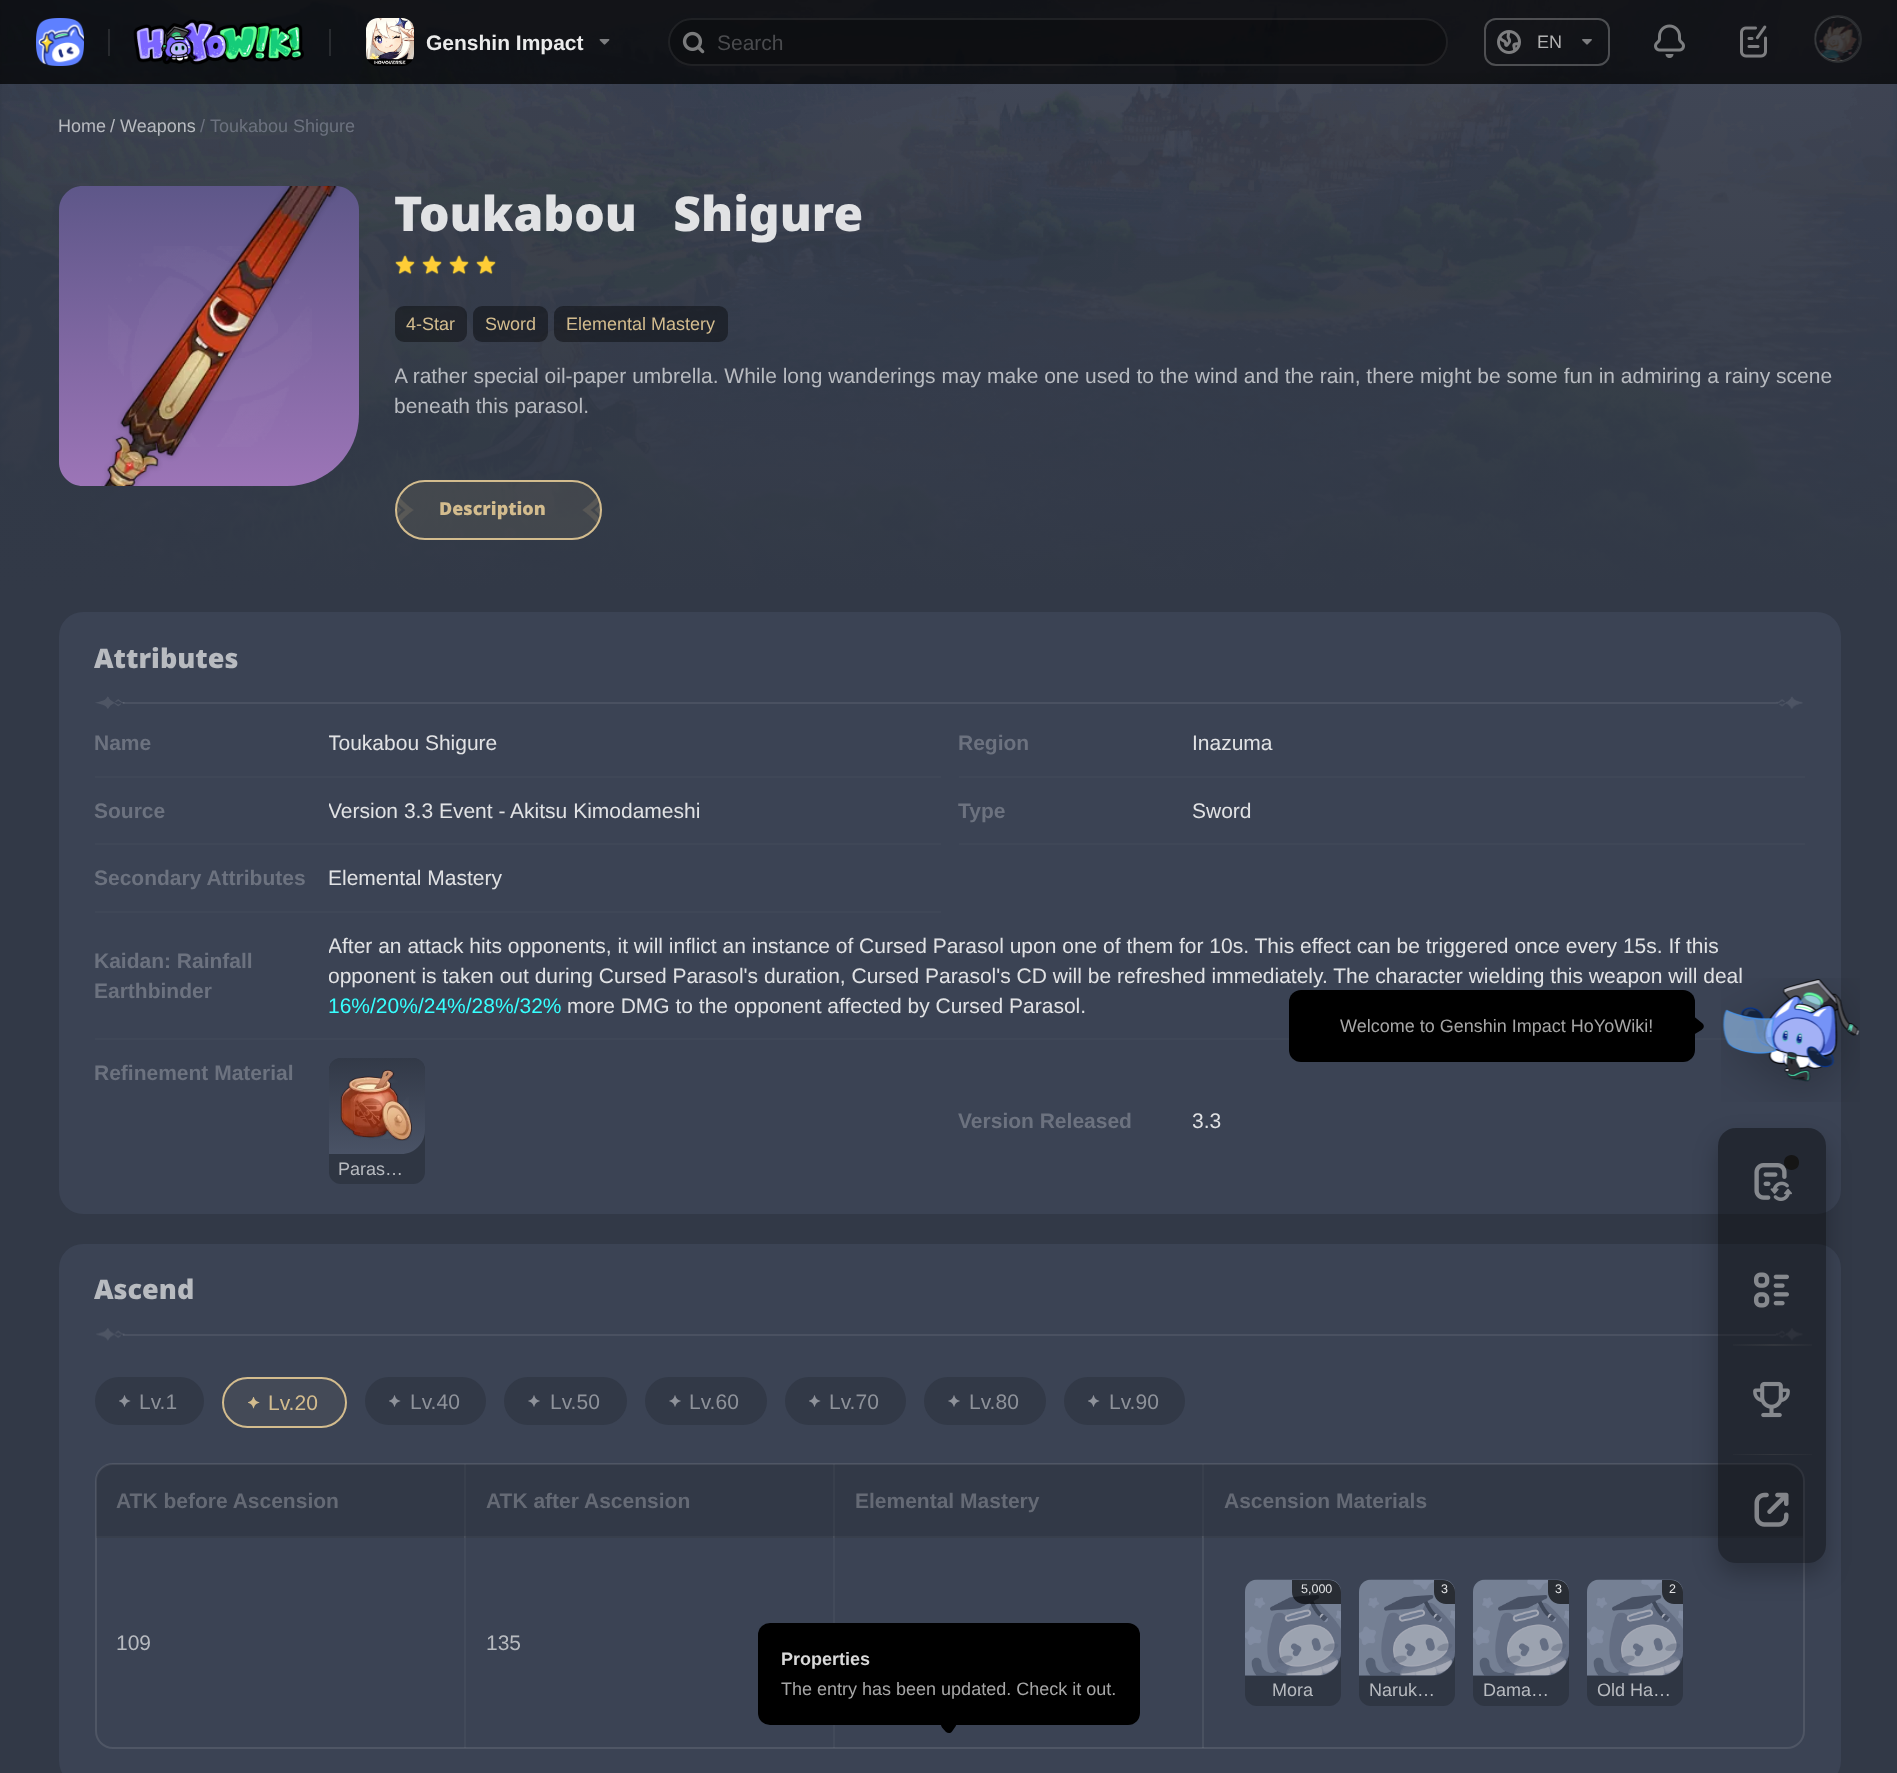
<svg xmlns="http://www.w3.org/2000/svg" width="1897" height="1773">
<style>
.a{font:bold 21px Liberation Sans;fill:#ebebeb}
.b{font:21px Liberation Sans;fill:#4a4b4e}
.c{font:18px Liberation Sans;fill:#b2b2b2}
.d{font:18px Liberation Sans;fill:#b8bbc0}
.e{font:18px Liberation Sans;fill:#6c727f}
.f{font:900 48px Noto Sans;fill:#e1e2e4}
.g{font:18px Liberation Sans;fill:#d3bc8e}
.h{font:21px Liberation Sans;fill:#b8bbc0}
.i{font:900 18px Noto Sans;fill:#d3bc8e}
.j{font:900 27px Noto Sans;fill:#b8bbc0}
.k{font:bold 21px Liberation Sans;fill:#6c727f}
.l{font:21px Liberation Sans;fill:#e1e2e4}
.m{font:21px Liberation Sans;fill:#37ffff}
.n{font:21px Liberation Sans;fill:#8e929a}
.o{font:21px Liberation Sans;fill:#d3bc8e}
.p{font:bold 21px Liberation Sans;fill:#656a75}
.q{font:12.5px Liberation Sans;fill:#e1e2e4}
.r{font:18px Liberation Sans;fill:#a6a6a6}
.s{font:bold 18px Liberation Sans;fill:#d9d9d9}
</style>
<defs>
<linearGradient id="g1" gradientUnits="userSpaceOnUse" x1="949" y1="0" x2="949" y2="593"><stop offset="0" stop-color="#323947" stop-opacity="0"/><stop offset="1" stop-color="#323947"/></linearGradient>
<linearGradient id="g2" gradientUnits="userSpaceOnUse" x1="209" y1="186" x2="209" y2="486"><stop offset="0" stop-color="#5e5789"/><stop offset="1" stop-color="#9c75b7"/></linearGradient>
<linearGradient id="g3" gradientUnits="userSpaceOnUse" x1="377" y1="1058" x2="377" y2="1154"><stop offset="0" stop-color="#323947"/><stop offset="1" stop-color="#4a5366"/></linearGradient>
<linearGradient id="g4" gradientUnits="userSpaceOnUse" x1="1293" y1="1580" x2="1293" y2="1676"><stop offset="0" stop-color="#323947"/><stop offset="1" stop-color="#4a5366"/></linearGradient>
<linearGradient id="g5" gradientUnits="userSpaceOnUse" x1="1407" y1="1580" x2="1407" y2="1676"><stop offset="0" stop-color="#323947"/><stop offset="1" stop-color="#4a5366"/></linearGradient>
<linearGradient id="g6" gradientUnits="userSpaceOnUse" x1="1521" y1="1580" x2="1521" y2="1676"><stop offset="0" stop-color="#323947"/><stop offset="1" stop-color="#4a5366"/></linearGradient>
<linearGradient id="g7" gradientUnits="userSpaceOnUse" x1="1635" y1="1580" x2="1635" y2="1676"><stop offset="0" stop-color="#323947"/><stop offset="1" stop-color="#4a5366"/></linearGradient>
<clipPath id="clip1"><path d="M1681 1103h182v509h-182zm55 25h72c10 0 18 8 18 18v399c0 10-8 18-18 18h-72c-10 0-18-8-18-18v-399c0-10 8-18 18-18z" clip-rule="evenodd"/></clipPath>
<linearGradient id="g8" gradientUnits="userSpaceOnUse" x1="1826" y1="1345" x2="1718" y2="1345"><stop offset="0" stop-color="#e5d8bd" stop-opacity="0"/><stop offset="0.48" stop-color="#e5d8bd" stop-opacity="0.08"/><stop offset="1" stop-color="#e5d8bd" stop-opacity="0"/></linearGradient>
<linearGradient id="g9" gradientUnits="userSpaceOnUse" x1="1826" y1="1454" x2="1718" y2="1454"><stop offset="0" stop-color="#e5d8bd" stop-opacity="0"/><stop offset="0.48" stop-color="#e5d8bd" stop-opacity="0.08"/><stop offset="1" stop-color="#e5d8bd" stop-opacity="0"/></linearGradient>
<clipPath id="clip2"><path d="M395 360h1446v60H395z"/></clipPath>
<clipPath id="clip3"><path d="M329 728h612v30H329z"/></clipPath>
<clipPath id="clip4"><path d="M329 795h612v30H329z"/></clipPath>
<clipPath id="clip5"><path d="M329 930h1476v90H329z"/></clipPath>
<clipPath id="clip6"><path d="M1193 1106h612v30H1193z"/></clipPath>
</defs>
<rect width="100%" height="100%" fill="#323947"/>
<image href="1.png" x="0" y="0" width="1897" height="590"/>
<path fill="url(#g1)" d="M0 73h1897v517H0z"/>
<path fill="#000000a6" d="M0 0h1897v84H0z"/>
<path fill="#00000029" d="M0 0h1897v84H0z"/>
<image href="2.png" x="36" y="18" width="48" height="48"/>
<path fill="#282a2e" d="M108 29h2v27H108z"/>
<image href="3.png" x="133" y="19" width="171" height="46"/>
<path fill="#282b2f" d="M329 29h2v27H329z"/>
<image href="4.png" x="366" y="18" width="48" height="48"/>
<image href="5.png" x="599" y="39" width="11" height="6"/>
<rect fill="#00000040" x="668" y="18" width="780" height="48" rx="24"/>
<rect fill="none" stroke="#ffffff14" stroke-width="2" x="669" y="19" width="778" height="46" rx="23"/>
<image href="6.png" x="682" y="31" width="23" height="23"/>
<rect fill="none" stroke="#ffffff40" stroke-width="2" x="1485" y="19" width="124" height="46" rx="11"/>
<image href="7.png" x="1497" y="30" width="24" height="24"/>
<image href="8.png" x="1582" y="39" width="10" height="6"/>
<image href="9.png" x="1654" y="24" width="31" height="34"/>
<image href="10.png" x="1740" y="25" width="27" height="33"/>
<circle fill="none" stroke="#2b2d30" stroke-width="2" cx="1838" cy="39" r="23"/>
<image href="11.png" x="1815" y="16" width="45" height="46"/>
<path fill="url(#g2)" d="M83 186h252c13.5 0 24 10.5 24 24v204c0 40-32 72-72 72h-204c-13.5 0-24-10.5-24-24v-252c0-13.5 10.5-24 24-24z"/>
<image href="13.png" x="108" y="246" width="204" height="201"/>
<image href="12.png" x="101" y="186" width="239" height="300"/>
<image href="14.png" x="395" y="255" width="20" height="20"/>
<image href="15.png" x="422" y="255" width="20" height="20"/>
<image href="16.png" x="449" y="255" width="20" height="20"/>
<image href="17.png" x="476" y="255" width="20" height="20"/>
<rect fill="#00000066" x="395" y="306" width="72" height="36" rx="9"/>
<rect fill="#00000066" x="473" y="306" width="75" height="36" rx="9"/>
<rect fill="#00000066" x="554" y="306" width="174" height="36" rx="9"/>
<rect fill="#d3bc8d1a" x="395" y="480" width="207" height="60" rx="30"/>
<image href="18.png" x="396" y="496" width="204" height="28"/>
<rect fill="none" stroke="#d3bc8e" stroke-width="2" x="396" y="481" width="205" height="58" rx="29"/>
<rect fill="#3b4354" x="59" y="612" width="1782" height="602" rx="24"/>
<image href="19.png" x="95" y="696" width="1708" height="13"/>
<path fill="#ffffff14" d="M123 702h1653v2H123z"/>
<path fill="#3f4757" d="M95 776h846v2H95z"/>
<path fill="#3f4757" d="M959 776h846v2H959z"/>
<path fill="#3f4757" d="M95 843h846v2H95z"/>
<path fill="#3f4757" d="M959 843h846v2H959z"/>
<path fill="#3f4757" d="M95 911h846v2H95z"/>
<path fill="#3f4757" d="M95 1038h1665v2H95z"/>
<rect fill="#2f3643" x="329" y="1058" width="96" height="126" rx="12"/>
<path fill="url(#g3)" d="M341 1058h72c6.5 0 12 5.5 12 12v60c0 13.5-10.5 24-24 24h-72v-84c0-6.5 5.5-12 12-12z"/>
<image href="21.png" x="361" y="1079" width="48" height="60"/>
<image href="20.png" x="340" y="1069" width="72" height="72"/>
<rect fill="#3b4354" x="59" y="1244" width="1782" height="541" rx="24"/>
<image href="22.png" x="96" y="1328" width="1707" height="13"/>
<path fill="#ffffff14" d="M123 1334h1653v2H123z"/>
<rect fill="#323947" x="95" y="1377" width="109" height="48" rx="24"/>
<image href="23.png" x="119" y="1395" width="12" height="12"/>
<rect fill="#444a57" stroke="#d3bc8e" stroke-width="2" x="223" y="1378" width="123" height="49" rx="24.5"/>
<image href="24.png" x="248" y="1397" width="12" height="12"/>
<rect fill="#323947" x="365" y="1377" width="121" height="48" rx="24"/>
<image href="23.png" x="389" y="1395" width="12" height="12"/>
<rect fill="#323947" x="504" y="1377" width="123" height="48" rx="24"/>
<image href="25.png" x="528" y="1395" width="12" height="12"/>
<rect fill="#323947" x="645" y="1377" width="122" height="48" rx="24"/>
<image href="25.png" x="669" y="1395" width="12" height="12"/>
<rect fill="#323947" x="785" y="1377" width="121" height="48" rx="24"/>
<image href="23.png" x="809" y="1395" width="12" height="12"/>
<rect fill="#323947" x="924" y="1377" width="122" height="48" rx="24"/>
<image href="25.png" x="948" y="1395" width="12" height="12"/>
<rect fill="#323947" x="1064" y="1377" width="121" height="48" rx="24"/>
<image href="23.png" x="1088" y="1395" width="12" height="12"/>
<rect fill="none" stroke="#4f5665" stroke-width="2" x="96" y="1464" width="1708" height="284" rx="17"/>
<path fill="#ffffff0a" d="M1202 1536h2v212H1202z"/>
<path fill="#ffffff0a" d="M1202 1536h2v212H1202z"/>
<path fill="#ffffff0a" d="M1202 1536h601v2H1202z"/>
<path fill="#ffffff0a" d="M1202 1464h2v74H1202z"/>
<path fill="#ffffff0a" d="M833 1536h2v212H833z"/>
<path fill="#ffffff0a" d="M833 1536h370v2H833z"/>
<path fill="#ffffff0a" d="M833 1464h2v74H833z"/>
<path fill="#ffffff0a" d="M464 1536h2v212H464z"/>
<path fill="#ffffff0a" d="M464 1536h370v2H464z"/>
<path fill="#ffffff0a" d="M464 1464h2v74H464z"/>
<path fill="#ffffff0a" d="M96 1536h369v2H96z"/>
<path fill="#00000026" d="M113 1464h351v74h-368v-57c0-9.5 7.5-17 17-17z"/>
<path fill="#00000026" d="M464 1464h369v74H464z"/>
<path fill="#00000026" d="M833 1464h369v74H833z"/>
<path fill="#00000026" d="M1202 1464h584c9.5 0 17 7.5 17 17v57h-601z"/>
<rect fill="#2f3643" x="1245" y="1580" width="96" height="126" rx="12"/>
<path fill="url(#g4)" d="M1257 1580h72c6.5 0 12 5.5 12 12v60c0 13.5-10.5 24-24 24h-72v-84c0-6.5 5.5-12 12-12z"/>
<image href="26.png" x="1245" y="1579" width="96" height="97"/>
<path fill="#000000a6" d="M1292 1580h37c6.5 0 12 5.5 12 12v12h-37c-6.5 0-12-5.5-12-12z"/>
<rect fill="#2f3643" x="1359" y="1580" width="96" height="126" rx="12"/>
<path fill="url(#g5)" d="M1371 1580h72c6.5 0 12 5.5 12 12v60c0 13.5-10.5 24-24 24h-72v-84c0-6.5 5.5-12 12-12z"/>
<image href="27.png" x="1359" y="1579" width="96" height="97"/>
<path fill="#000000a6" d="M1434 1580h9c6.5 0 12 5.5 12 12v12h-9c-6.5 0-12-5.5-12-12z"/>
<rect fill="#2f3643" x="1473" y="1580" width="96" height="126" rx="12"/>
<path fill="url(#g6)" d="M1485 1580h72c6.5 0 12 5.5 12 12v60c0 13.5-10.5 24-24 24h-72v-84c0-6.5 5.5-12 12-12z"/>
<image href="27.png" x="1473" y="1579" width="96" height="97"/>
<path fill="#000000a6" d="M1548 1580h9c6.5 0 12 5.5 12 12v12h-9c-6.5 0-12-5.5-12-12z"/>
<rect fill="#2f3643" x="1587" y="1580" width="96" height="126" rx="12"/>
<path fill="url(#g7)" d="M1599 1580h72c6.5 0 12 5.5 12 12v60c0 13.5-10.5 24-24 24h-72v-84c0-6.5 5.5-12 12-12z"/>
<image href="27.png" x="1587" y="1579" width="96" height="97"/>
<path fill="#000000a6" d="M1662 1580h9c6.5 0 12 5.5 12 12v12h-9c-6.5 0-12-5.5-12-12z"/>
<rect fill="#000" x="1289" y="990" width="406" height="72" rx="12"/>
<path fill="#000" d="M1691.5 1014.5l10.5 8.5c2.5 2 2.5 5-.5 7l-12.5 7.5c-3 2-7.5 2-10 0l-10.5-8.5c-2.5-2-2.5-5 .5-7l12.5-7.5c3-2 7.5-2 10 0z"/>
<g clip-path="url(#clip1)">
<rect fill="#00000040" filter="blur(12px)" x="1718" y="1140" width="108" height="435" rx="18"/>
</g>
<rect fill="#00000066" x="1718" y="1128" width="108" height="435" rx="18"/>
<image href="29.png" x="1754" y="1163" width="38" height="38"/>
<path fill="#151515" d="M1791.5 1155c10 0 10 15 0 15c-10 0-10-15 0-15z"/>
<image href="30.png" x="1754" y="1272" width="35" height="36"/>
<path fill="url(#g8)" d="M1733 1344h79v2H1733z"/>
<image href="31.png" x="1753" y="1381" width="37" height="37"/>
<path fill="url(#g9)" d="M1733 1454h79v1H1733z"/>
<image href="32.png" x="1754" y="1492" width="35" height="35"/>
<rect fill="#000" x="758" y="1623" width="382" height="102" rx="12"/>
<path fill="#000" d="M951.5 1715l4 4.5c1.5 2 1.5 5 0 7l-3.5 5c-1.5 2-4 2-6 .5l-4-4.5c-1.5-2-1.5-5 0-7l3.5-5c1.5-2 4-2 6-.5z"/>
<text class="a" x="426" y="50">Genshin Impact</text>
<text class="b" x="717" y="50">Search</text>
<text class="c" x="1537" y="48">EN</text>
<text class="d" x="58" y="132">Home</text>
<text class="d" x="110" y="132">/</text>
<text class="d" x="120" y="132">Weapons</text>
<text class="e" x="200" y="132">/</text>
<text class="e" x="210" y="132">Toukabou Shigure</text>
<text class="f" x="394" y="231" word-spacing="24">Toukabou Shigure</text>
<text class="g" x="406" y="330">4-Star</text>
<text class="g" x="485" y="330">Sword</text>
<text class="g" x="566" y="330">Elemental Mastery</text>
<g clip-path="url(#clip2)">
<text class="h" x="394" y="383">A rather special oil-paper umbrella. While long wanderings may make one used to the wind and the rain, there might be some fun in admiring a rainy scene</text>
</g>
<text class="h" x="394" y="413">beneath this parasol.</text>
<text class="i" x="439" y="515">Description</text>
<text class="j" x="94" y="668">Attributes</text>
<text class="k" x="94" y="750">Name</text>
<g clip-path="url(#clip3)">
<text class="l" x="328" y="750">Toukabou Shigure</text>
</g>
<text class="k" x="958" y="750">Region</text>
<text class="l" x="1192" y="750">Inazuma</text>
<text class="k" x="94" y="818">Source</text>
<g clip-path="url(#clip4)">
<text class="l" x="328" y="818">Version 3.3 Event - Akitsu Kimodameshi</text>
</g>
<text class="k" x="958" y="818">Type</text>
<text class="l" x="1192" y="818">Sword</text>
<text class="k" x="94" y="885">Secondary Attributes</text>
<text class="l" x="328" y="885">Elemental Mastery</text>
<text class="k" x="94" y="968">Kaidan: Rainfall</text>
<text class="k" x="94" y="998">Earthbinder</text>
<g clip-path="url(#clip5)">
<text class="l" x="328" y="953">After an attack hits opponents, it will inflict an instance of Cursed Parasol upon one of them for 10s. This effect can be triggered once every 15s. If this</text>
<text class="l" x="328" y="983">opponent is taken out during Cursed Parasol's duration, Cursed Parasol's CD will be refreshed immediately. The character wielding this weapon will deal</text>
</g>
<text class="m" x="328" y="1013">16%/20%/24%/28%/32%</text>
<text class="l" x="567" y="1013">more DMG to the opponent affected by Cursed Parasol.</text>
<text class="k" x="94" y="1080">Refinement Material</text>
<text class="d" x="338" y="1175">Paras…</text>
<text class="k" x="958" y="1128">Version Released</text>
<g clip-path="url(#clip6)">
<text class="l" x="1192" y="1128">3.3</text>
</g>
<text class="j" x="94" y="1299">Ascend</text>
<text class="n" x="139" y="1409">Lv.1</text>
<text class="o" x="268" y="1410">Lv.20</text>
<text class="n" x="410" y="1409">Lv.40</text>
<text class="n" x="550" y="1409">Lv.50</text>
<text class="n" x="689" y="1409">Lv.60</text>
<text class="n" x="829" y="1409">Lv.70</text>
<text class="n" x="969" y="1409">Lv.80</text>
<text class="n" x="1109" y="1409">Lv.90</text>
<text class="p" x="116" y="1508">ATK before Ascension</text>
<text class="p" x="486" y="1508">ATK after Ascension</text>
<text class="p" x="855" y="1508">Elemental Mastery</text>
<text class="p" x="1224" y="1508">Ascension Materials</text>
<text class="h" x="116" y="1650">109</text>
<text class="h" x="486" y="1650">135</text>
<text class="q" x="1301" y="1593">5,000</text>
<text class="d" x="1272" y="1696">Mora</text>
<text class="q" x="1441" y="1593">3</text>
<text class="d" x="1369" y="1696">Naruk…</text>
<text class="q" x="1555" y="1593">3</text>
<text class="d" x="1483" y="1696">Dama…</text>
<text class="q" x="1669" y="1593">2</text>
<text class="d" x="1597" y="1696">Old Ha…</text>
<text class="r" x="1340" y="1032">Welcome to Genshin Impact HoYoWiki!</text>
<image href="28.png" x="1721" y="978" width="139" height="124"/>
<text class="s" x="781" y="1665">Properties</text>
<text class="r" x="781" y="1695">The entry has been updated. Check it out.</text>
</svg>
